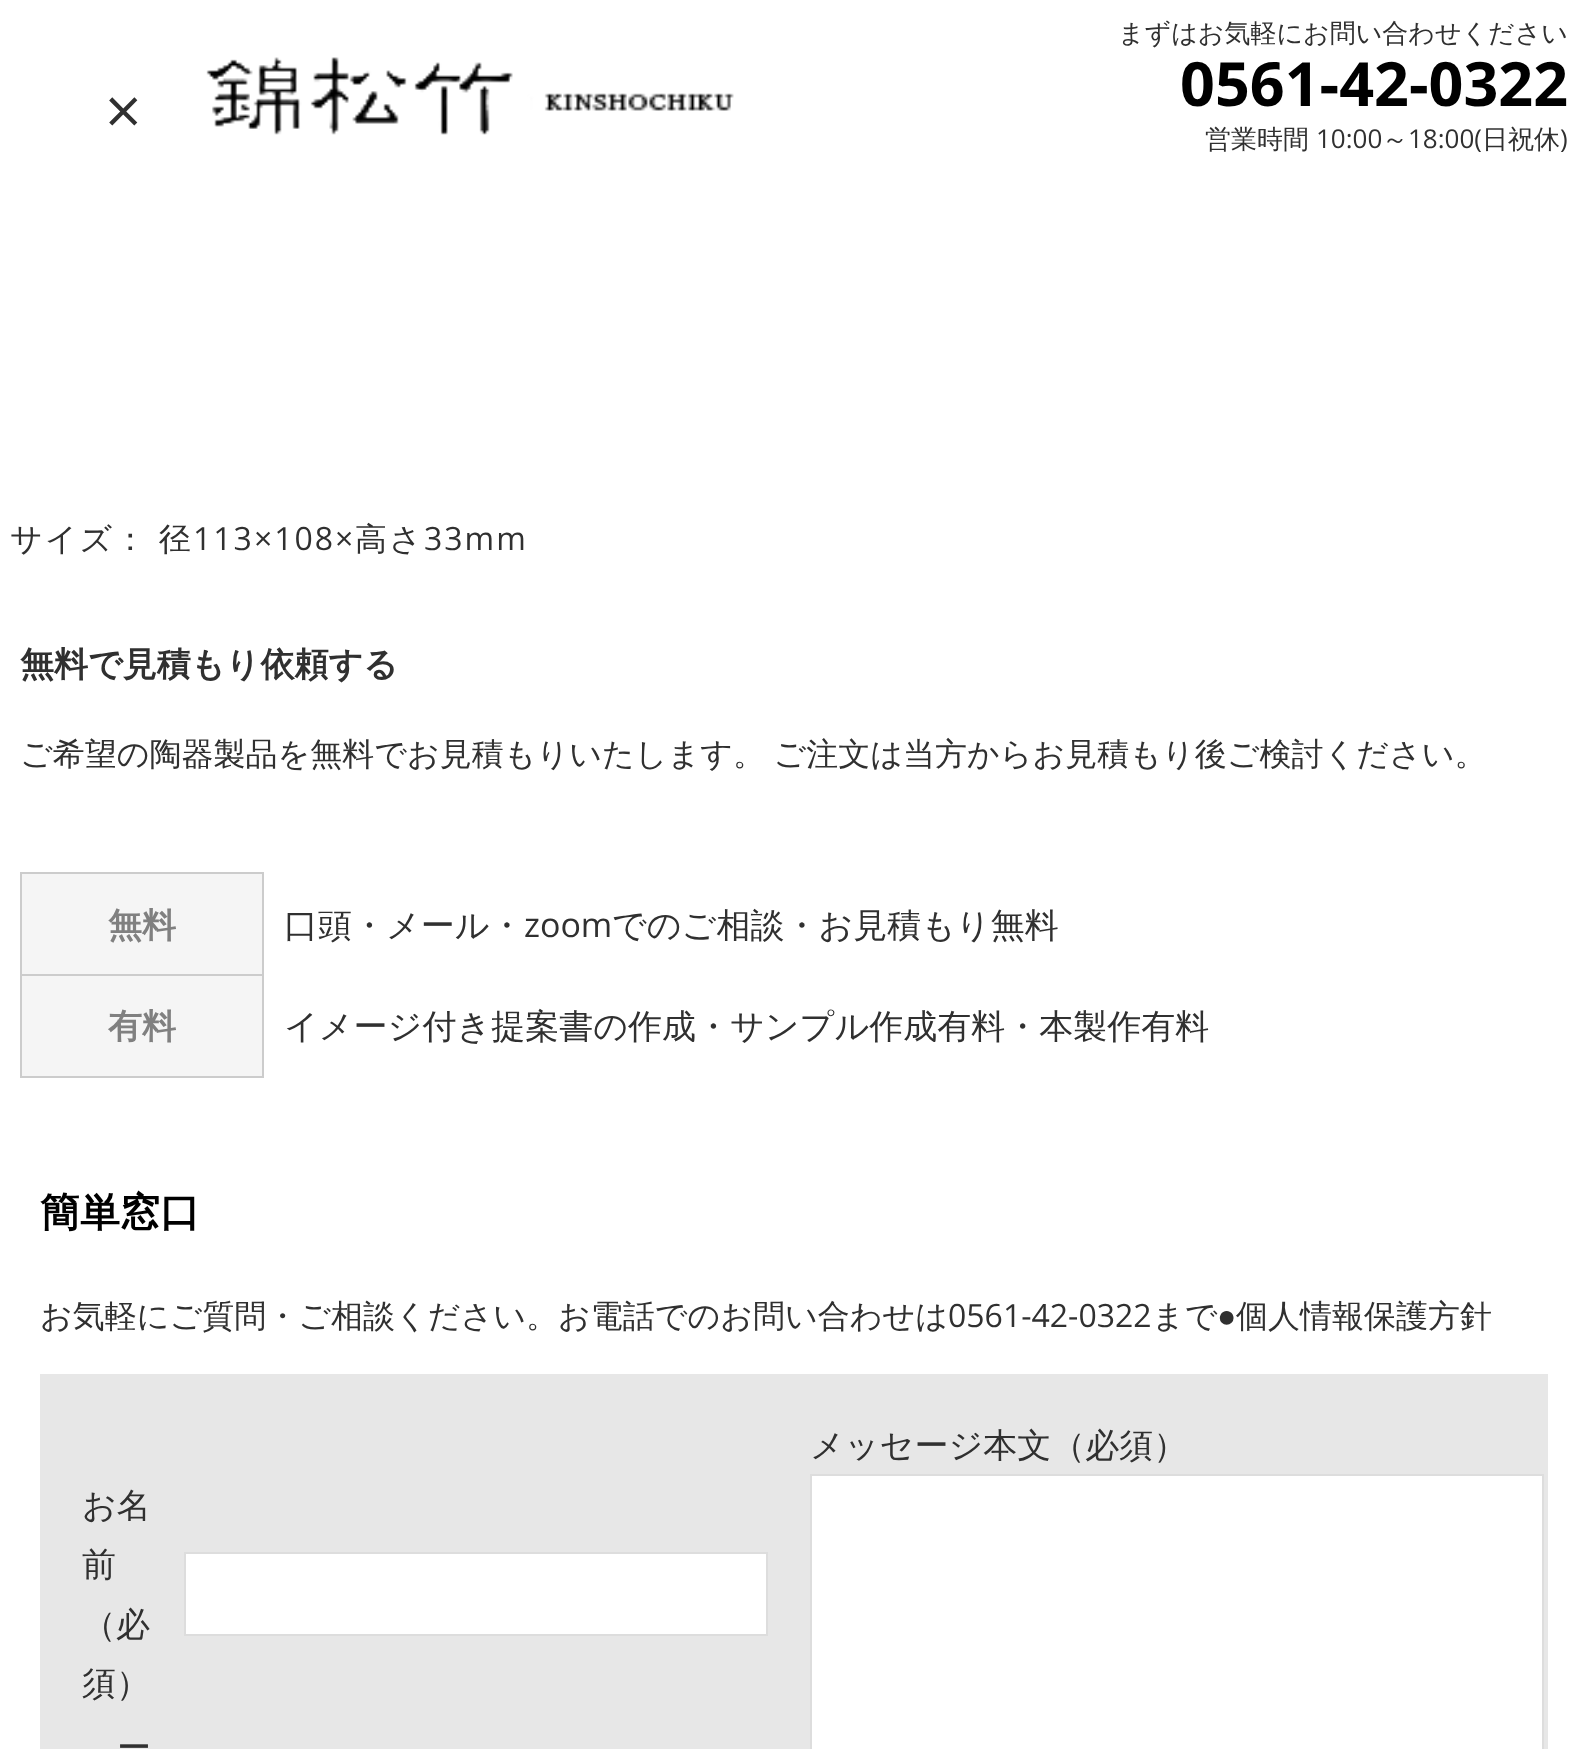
<svg xmlns="http://www.w3.org/2000/svg" width="1588" height="1749">
<style>
.a{font:64px Open Sans;fill:#303030}
.b{font:500 26px WenQuanYi Zen Hei;fill:#303030}
.c{font:bold 61px Open Sans;fill:#000}
.d{font:26px Open Sans;fill:#303030}
.e{font:500 32px WenQuanYi Zen Hei;letter-spacing:2px;fill:#303030}
.f{font:32px Open Sans;letter-spacing:2px;fill:#303030}
.g{font:bold 34px WenQuanYi Zen Hei;fill:#303030}
.h{font:500 32px WenQuanYi Zen Hei;fill:#303030}
.i{font:bold 34px WenQuanYi Zen Hei;fill:#808080}
.j{font:500 34px WenQuanYi Zen Hei;fill:#303030}
.k{font:34px Open Sans;fill:#303030}
.l{font:bold 40px WenQuanYi Zen Hei;fill:#000}
.m{font:32px Open Sans;fill:#303030}
.n{font:32px Liberation Sans;fill:#303030}
</style>
<rect width="100%" height="100%" fill="#fff"/>
<image href="1.png" x="206" y="57" width="528" height="78"/>
<path fill="#f5f5f5" d="M22 874h240v100H22z"/>
<path fill="#ccc" d="M20 872h244v2H20z"/>
<path fill="#ccc" d="M20 974h244v2H20z"/>
<path fill="#ccc" d="M262 974h2v104H262z"/>
<path fill="#ccc" d="M262 872h2v104H262z"/>
<path fill="#ccc" d="M20 1076h244v2H20z"/>
<path fill="#ccc" d="M20 974h2v104H20z"/>
<path fill="#ccc" d="M20 872h2v104H20z"/>
<path fill="#f5f5f5" d="M22 976h240v100H22z"/>
<path fill="#e7e7e7" d="M40 1374h1508v375H40z"/>
<path fill="#fff" stroke="#ddd" stroke-width="2" d="M811 1475h732v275H811z"/>
<path fill="#fff" stroke="#ddd" stroke-width="2" d="M185 1553h582v82H185z"/>
<text class="a" x="105" y="134">×</text>
<text class="b" x="1118" y="42">まずはお気軽にお問い合わせください</text>
<text class="c" x="1180" y="106">0561-42-0322</text>
<text class="b" x="1205" y="148">営業時間</text>
<text class="d" x="1316" y="148">10:00</text>
<text class="b" x="1382" y="148">～</text>
<text class="d" x="1408" y="148">18:00(</text>
<text class="b" x="1482" y="148">日祝休</text>
<text class="d" x="1560" y="148">)</text>
<text class="e" x="10" y="550" word-spacing="-1">サイズ： 径</text>
<text class="f" x="193" y="550">113×108×</text>
<text class="e" x="355" y="550">高さ</text>
<text class="f" x="424" y="550">33mm</text>
<text class="g" x="20" y="676">無料で見積もり依頼する</text>
<text class="h" x="20" y="765" word-spacing="-1">ご希望の陶器製品を無料でお見積もりいたします。 ご注文は当方からお見積もり後ご検討ください。</text>
<text class="i" x="108" y="937">無料</text>
<text class="j" x="284" y="937">口頭・メール・</text>
<text class="k" x="524" y="937">zoom</text>
<text class="j" x="612" y="937">でのご相談・お見積もり無料</text>
<text class="i" x="108" y="1038">有料</text>
<text class="j" x="284" y="1038">イメージ付き提案書の作成・サンプル作成有料・本製作有料</text>
<text class="l" x="40" y="1226">簡単窓口</text>
<text class="h" x="40" y="1327">お気軽にご質問・ご相談ください。お電話でのお問い合わせは</text>
<text class="m" x="948" y="1327">0561-42-0322</text>
<text class="h" x="1152" y="1327">まで</text>
<text class="n" x="1217" y="1327">●</text>
<text class="h" x="1236" y="1327">個人情報保護方針</text>
<text class="j" x="810" y="1457">メッセージ本文（必須）</text>
<text class="j" x="82" y="1517">お名</text>
<text class="j" x="82" y="1576">前</text>
<text class="j" x="82" y="1636">（必</text>
<text class="j" x="82" y="1695">須）</text>
<text class="j" x="117" y="1759">ー</text>
</svg>
